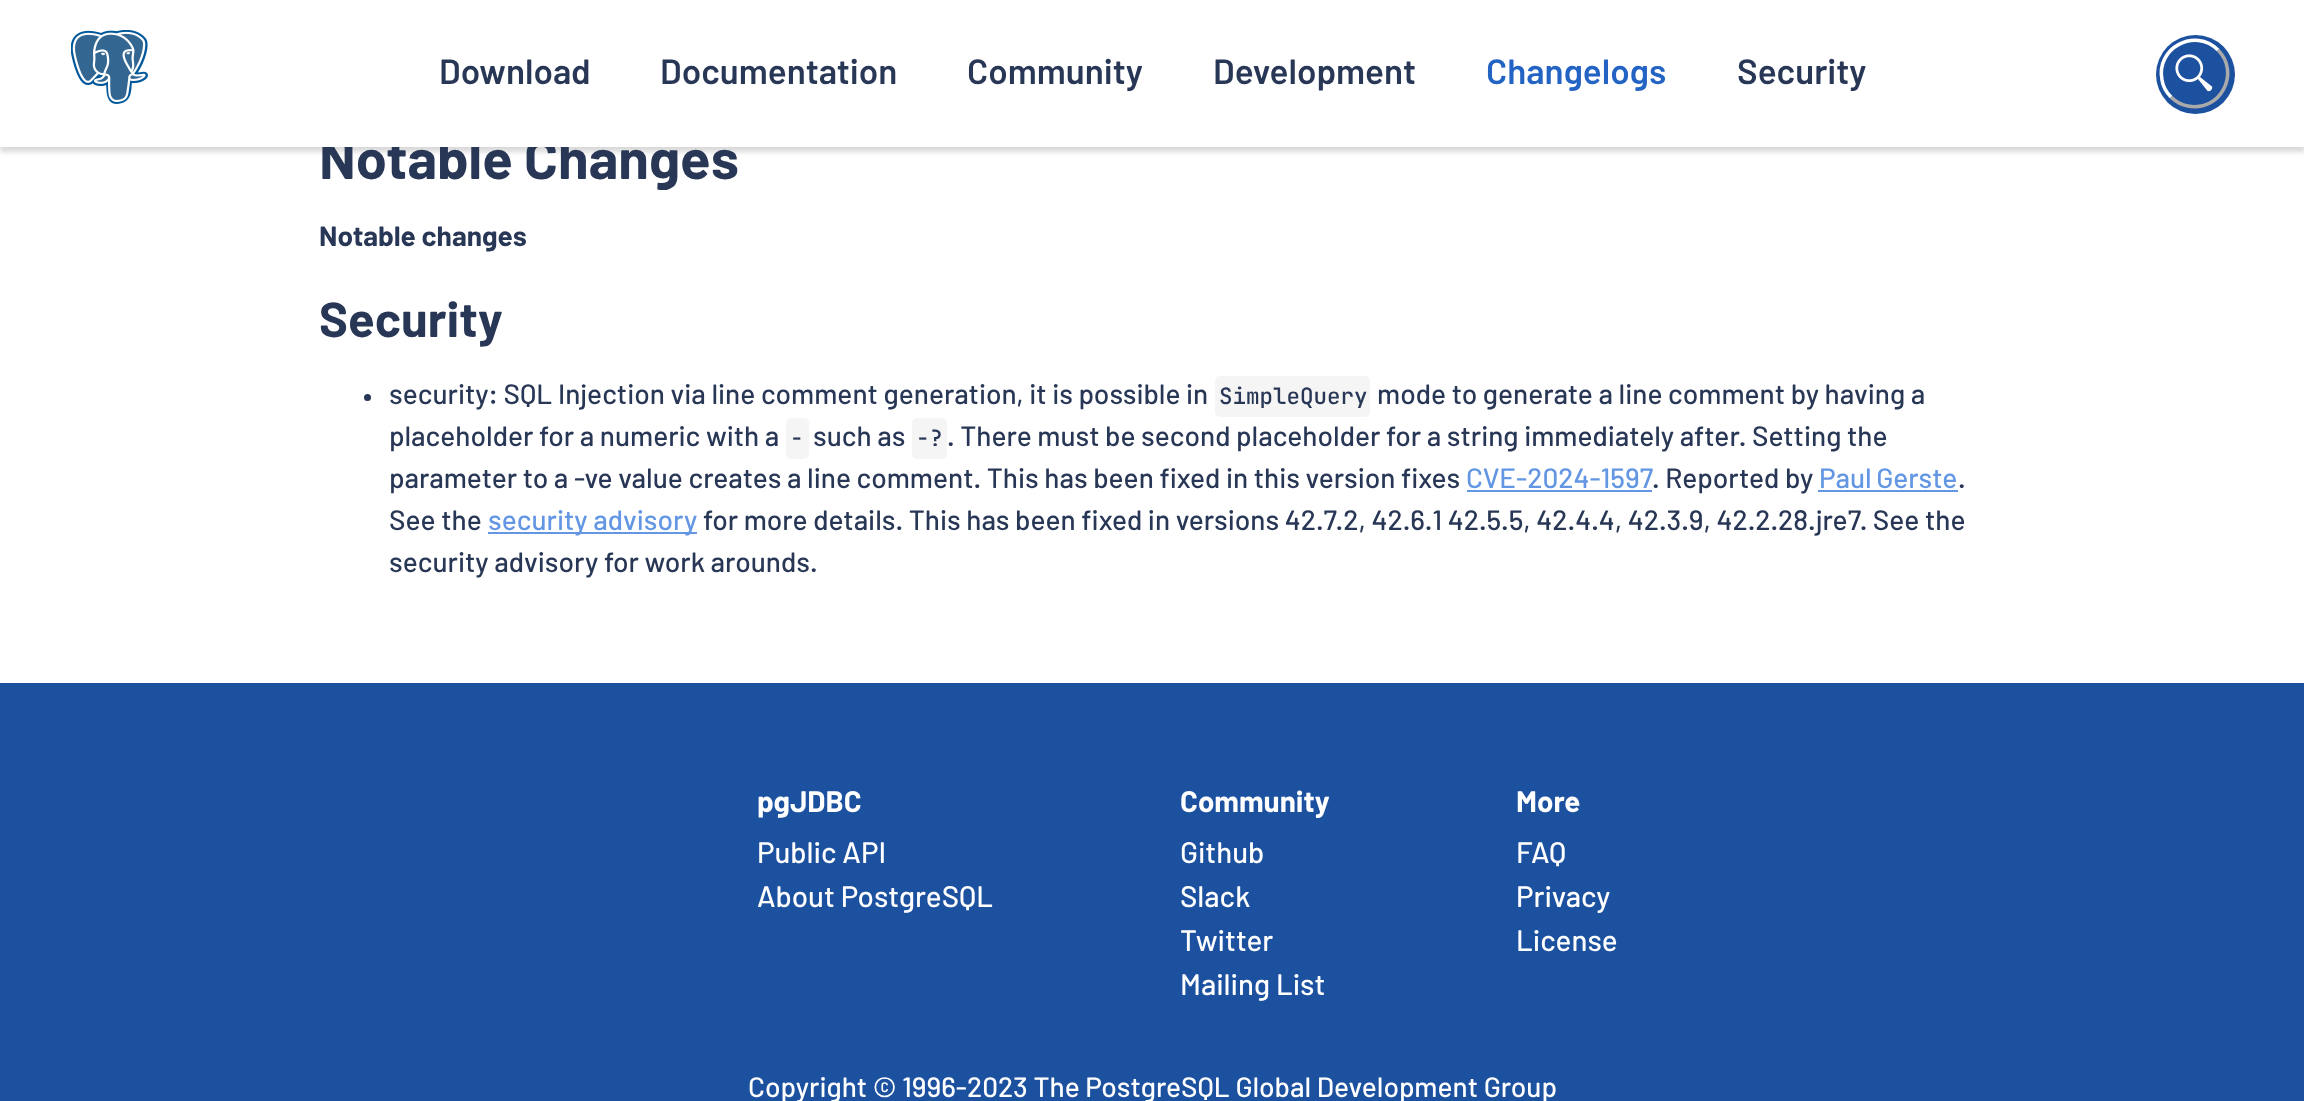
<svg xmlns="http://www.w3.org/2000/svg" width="2304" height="1101">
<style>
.a{font:bold 56px Barlow;fill:#293756}
.b{font:600 35px Barlow;fill:#293756}
.c{font:600 35px Barlow;fill:#2263c3}
.d{font:bold 28px Barlow;fill:#293756}
.e{font:bold 49px Barlow;fill:#293756}
.f{font:500 28px Barlow;fill:#293756}
.g{font:500 22.5px JetBrains Mono;fill:#293756}
.h{font:500 28px Barlow;fill:#6396e3}
.i{font:bold 29.5px Barlow;fill:#fff}
.j{font:500 29.5px Barlow;fill:#fff}
.k{font:500 28px Barlow;fill:#fff}
</style>
<rect width="100%" height="100%" fill="#fff"/>
<path fill="#00000026" filter="blur(2.5px)" d="M0 5h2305v147H0z"/>
<circle fill="#293756" cx="367.5" cy="397.5" r="3.5"/>
<rect fill="#f5f5f5" x="1215" y="376" width="155" height="41" rx="5"/>
<rect fill="#f5f5f5" x="786" y="418" width="23" height="41" rx="5"/>
<rect fill="#f5f5f5" x="912" y="418" width="35" height="41" rx="5"/>
<path fill="#6396e3" d="M1467 490h185v2H1467z"/>
<path fill="#6396e3" d="M1818 490h140v2H1818z"/>
<path fill="#6396e3" d="M488 532h209v2H488z"/>
<path fill="#1c51a0" d="M0 683h2304v418H0z"/>
<text class="a" x="319" y="179">Notable Changes</text>
<path fill="#fff" d="M0 1h2304v146H0z"/>
<text class="b" x="1737" y="84">Security</text>
<text class="c" x="1486" y="84">Changelogs</text>
<text class="b" x="1213" y="84">Development</text>
<text class="b" x="967" y="84">Community</text>
<text class="b" x="660" y="84">Documentation</text>
<text class="b" x="439" y="84">Download</text>
<circle fill="#1c51a0" cx="2195.5" cy="74.5" r="39.5"/>
<path fill="none" stroke="#aaa" stroke-width="3.5" d="M2218 50c23 23 2 62.5-30 56c-6.5-1-12.5-4.5-17-9"/>
<path fill="none" stroke="#fff" stroke-width="3.5" d="M2171 97c-4.5-4.5-8-10.5-9-17c-6.5-32 33-53 56-30"/>
<image href="2.png" x="2175" y="54" width="38" height="38"/>
<image href="1.png" x="71" y="30" width="77" height="74"/>
<text class="d" x="319" y="246">Notable changes</text>
<text class="e" x="319" y="337">Security</text>
<text class="f" x="389" y="404">security: SQL Injection via line comment generation, it is possible in</text>
<text class="g" x="1219" y="404">SimpleQuery</text>
<text class="f" x="1377" y="404">mode to generate a line comment by having a</text>
<text class="f" x="389" y="446">placeholder for a numeric with a</text>
<text class="g" x="790" y="446">-</text>
<text class="f" x="813" y="446">such as</text>
<text class="g" x="916" y="446">-?</text>
<text class="f" x="947" y="446">. There must be second placeholder for a string immediately after. Setting the</text>
<text class="f" x="389" y="488">parameter to a -ve value creates a line comment. This has been fixed in this version fixes</text>
<text class="h" x="1466" y="488">CVE-2024-1597</text>
<text class="f" x="1652" y="488">. Reported by</text>
<text class="h" x="1819" y="488" word-spacing="-1">Paul Gerste</text>
<text class="f" x="1958" y="488">.</text>
<text class="f" x="389" y="530">See the</text>
<text class="h" x="488" y="530">security advisory</text>
<text class="f" x="703" y="530">for more details. This has been fixed in versions 42.7.2, 42.6.1 42.5.5, 42.4.4, 42.3.9, 42.2.28.jre7. See the</text>
<text class="f" x="389" y="572">security advisory for work arounds.</text>
<text class="i" x="757" y="812">pgJDBC</text>
<text class="j" x="757" y="863">Public API</text>
<text class="j" x="757" y="907">About PostgreSQL</text>
<text class="i" x="1180" y="812">Community</text>
<text class="j" x="1180" y="863">Github</text>
<text class="j" x="1180" y="907">Slack</text>
<text class="j" x="1180" y="951">Twitter</text>
<text class="j" x="1180" y="995">Mailing List</text>
<text class="i" x="1516" y="812">More</text>
<text class="j" x="1516" y="863">FAQ</text>
<text class="j" x="1516" y="907">Privacy</text>
<text class="j" x="1516" y="951">License</text>
<text class="k" x="748" y="1097">Copyright © 1996-2023 The PostgreSQL Global Development Group</text>
</svg>
